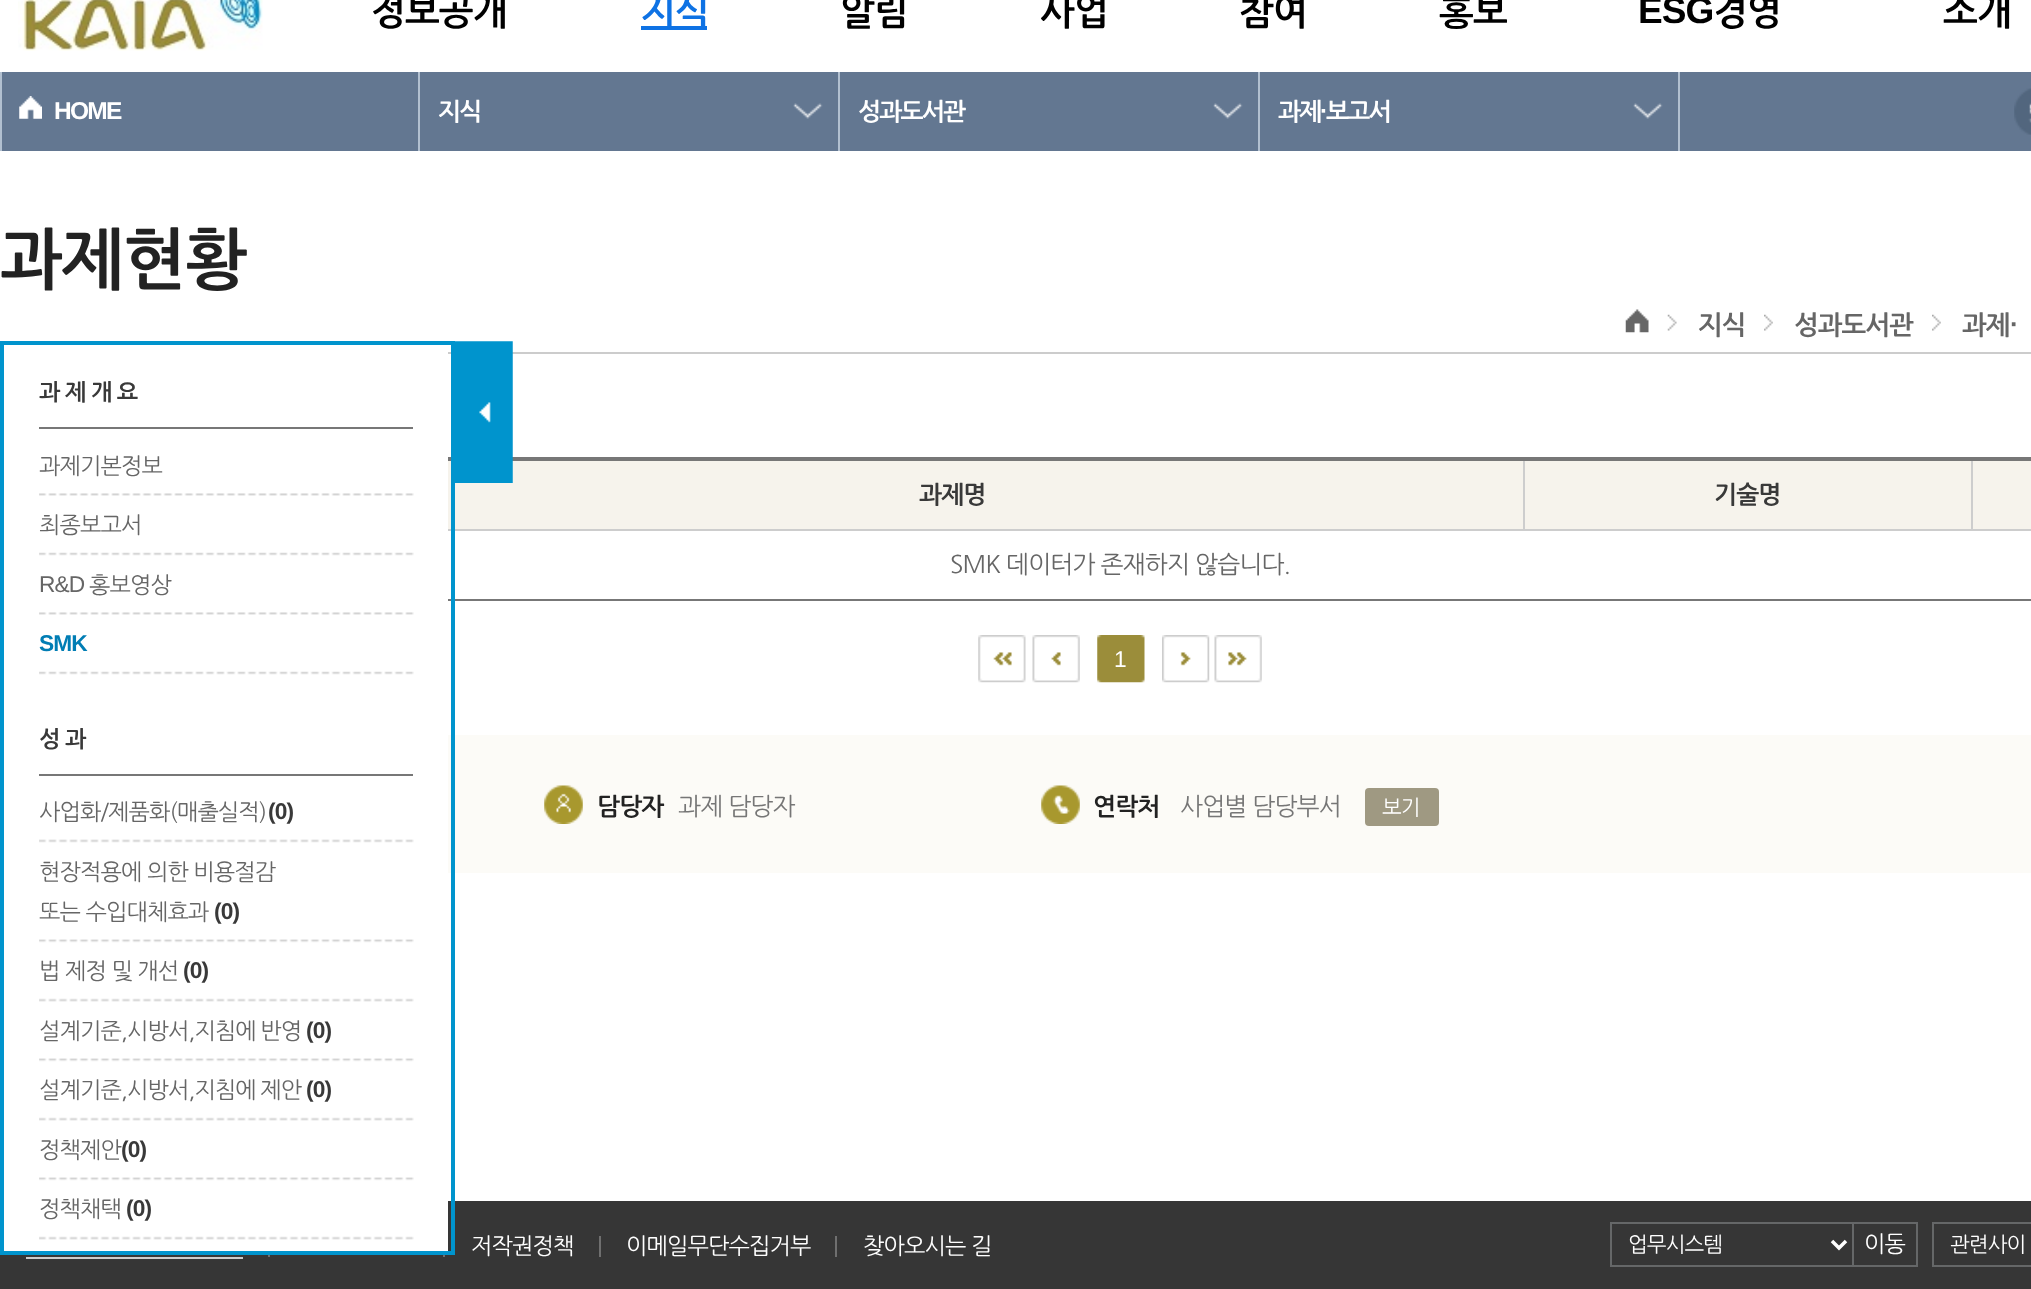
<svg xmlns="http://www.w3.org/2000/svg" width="2031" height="1289">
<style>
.a{font:bold 37px NanumGothic;letter-spacing:-0.9px;fill:#000}
.b{font:bold 37px NanumGothic;letter-spacing:-0.9px;fill:#0e72e4}
.c{font:bold 37px Liberation Sans;letter-spacing:-0.9px;fill:#000}
.d{font:bold 24.5px Liberation Sans;letter-spacing:-1.75px;fill:#fff}
.e{font:bold 24.5px NanumGothic;letter-spacing:-1.75px;fill:#fff}
.f{font:bold 66.5px NanumGothic;letter-spacing:-0.9px;fill:#222}
.g{font:bold 26.25px NanumGothic;letter-spacing:-0.9px;fill:#666}
.h{font:bold 26.25px Liberation Sans;letter-spacing:-0.9px;fill:#666}
.i{font:bold 22.75px NanumGothic;letter-spacing:-0.9px;fill:#393939}
.j{font:22.75px NanumGothic;letter-spacing:-0.9px;fill:#666}
.k{font:22.75px Liberation Sans;letter-spacing:-0.9px;fill:#666}
.l{font:bold 22.75px Liberation Sans;letter-spacing:-0.9px;fill:#007db4}
.m{font:bold 22.75px Liberation Sans;letter-spacing:-0.9px;fill:#393939}
.n{font:bold 24.5px NanumGothic;letter-spacing:-0.9px;fill:#393939}
.o{font:24.5px NanumGothic;letter-spacing:-0.9px;fill:#666}
.p{font:22.75px Liberation Sans;letter-spacing:-0.9px;fill:#fff}
.q{font:bold 24.5px NanumGothic;letter-spacing:-0.9px;fill:#222}
.r{font:24.5px NanumGothic;letter-spacing:-0.9px;fill:#767676}
.s{font:21px NanumGothic;letter-spacing:-0.9px;fill:#fff}
.t{font:22.75px NanumGothic;letter-spacing:-0.9px;fill:#fff}
</style>
<rect width="100%" height="100%" fill="#fff"/>
<image href="1.png" x="18" y="0" width="245" height="51"/>
<path fill="#0e72e4" d="M641 26h66v4H641z"/>
<path fill="#637791" d="M2 72h2029v79H2z"/>
<image href="2.png" x="19" y="96" width="23" height="23"/>
<path fill="#b2c0d0" d="M418 72h2v79H418z"/>
<path fill="#b2c0d0" d="M0 72h2v79H0z"/>
<image href="3.png" x="793" y="103" width="30" height="16"/>
<path fill="#b2c0d0" d="M838 72h2v79H838z"/>
<image href="4.png" x="1213" y="103" width="30" height="16"/>
<path fill="#b2c0d0" d="M1258 72h2v79H1258z"/>
<image href="3.png" x="1633" y="103" width="30" height="16"/>
<path fill="#b2c0d0" d="M1678 72h2v79H1678z"/>
<image href="5.png" x="2014" y="88" width="17" height="47"/>
<path fill="#ccc" d="M448 352h1583v2H448z"/>
<image href="6.png" x="1625" y="309" width="24" height="24"/>
<image href="7.png" x="1667" y="314" width="10" height="17"/>
<image href="8.png" x="1764" y="314" width="9" height="17"/>
<image href="8.png" x="1932" y="314" width="9" height="17"/>
<path fill="#777" d="M448 599h1583v2H448z"/>
<path fill="#cdcdcd" d="M448 529h1583v2H448z"/>
<path fill="#cdcdcd" d="M1523 459h2v71H1523z"/>
<path fill="#cdcdcd" d="M1971 459h2v71H1971z"/>
<path fill="#777" d="M448 457h1583v4H448z"/>
<path fill="#f6f3ec" d="M448 461h1075v68H448z"/>
<path fill="#fcfbf7" d="M448 735h1583v138H448z"/>
<path fill="#363636" d="M0 1201h2031v88H0z"/>
<path fill="none" stroke="#0094cd" stroke-width="4" d="M2 343h451v910H2z"/>
<path fill="#fff" d="M4 1201h444v50H4z"/>
<path fill="#777" d="M39 427h374v2H39z"/>
<image href="9.png" x="39" y="493" width="375" height="3"/>
<image href="10.png" x="39" y="552" width="375" height="4"/>
<image href="9.png" x="39" y="612" width="375" height="3"/>
<image href="10.png" x="39" y="671" width="375" height="4"/>
<path fill="#777" d="M39 774h374v2H39z"/>
<image href="11.png" x="39" y="839" width="375" height="4"/>
<image href="12.png" x="39" y="939" width="375" height="4"/>
<image href="13.png" x="39" y="998" width="375" height="4"/>
<image href="12.png" x="39" y="1058" width="375" height="4"/>
<image href="13.png" x="39" y="1117" width="375" height="4"/>
<image href="12.png" x="39" y="1177" width="375" height="4"/>
<image href="13.png" x="39" y="1236" width="375" height="4"/>
<image href="14.png" x="455" y="341" width="58" height="142"/>
<path fill="#f6f3ec" d="M1525 461h446v68H1525z"/>
<path fill="#f6f3ec" d="M1973 461h58v68H1973z"/>
<image href="15.png" x="978" y="635" width="48" height="48"/>
<image href="16.png" x="1032" y="635" width="48" height="48"/>
<image href="17.png" x="1097" y="635" width="48" height="48"/>
<image href="18.png" x="1162" y="635" width="48" height="48"/>
<image href="19.png" x="1214" y="635" width="48" height="48"/>
<image href="20.png" x="544" y="785" width="39" height="39"/>
<image href="21.png" x="1041" y="785" width="39" height="39"/>
<rect fill="#9f9982" x="1365" y="788" width="74" height="38" rx="4"/>
<path fill="#6f6f6f" d="M268 1255h2v2H268z"/>
<path fill="#cdcdcd" d="M26 1257h217v2H26z"/>
<path fill="#6f6f6f" d="M443 1255h2v2H443z"/>
<path fill="#6f6f6f" d="M599 1236h2v21H599z"/>
<path fill="#6f6f6f" d="M835 1236h2v21H835z"/>
<path fill="none" stroke="#656768" stroke-width="2" d="M1611 1223h243v43H1611z"/>
<path fill="none" stroke="#fff" stroke-width="3.5" d="M1832 1241l7 7l7-7"/>
<path fill="#363636" d="M1854 1224h1v41H1854z"/>
<path fill="none" stroke="#656768" stroke-width="2" d="M1853 1223h64v43H1853z"/>
<path fill="none" stroke="#656768" stroke-width="2" d="M1933 1223h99v43H1933z"/>
<text class="a" x="371" y="23">정보공개</text>
<text class="b" x="641" y="23">지식</text>
<text class="a" x="840" y="23">알림</text>
<text class="a" x="1040" y="23">사업</text>
<text class="a" x="1239" y="23">참여</text>
<text class="a" x="1439" y="23">홍보</text>
<text class="c" x="1638" y="23">ESG</text>
<text class="a" x="1713" y="23">경영</text>
<text class="a" x="1943" y="23">소개</text>
<text class="d" x="54" y="119">HOME</text>
<text class="e" x="438" y="119">지식</text>
<text class="e" x="858" y="119">성과도서관</text>
<text class="e" x="1278" y="119">과제</text>
<text class="d" x="1320" y="119">·</text>
<text class="e" x="1326" y="119">보고서</text>
<text class="f" x="0" y="280">과제현황</text>
<text class="g" x="1698" y="333">지식</text>
<text class="g" x="1794" y="333">성과도서관</text>
<text class="g" x="1962" y="333">과제</text>
<text class="h" x="2010" y="333">·</text>
<text class="i" x="39" y="399">과 제 개 요</text>
<text class="j" x="39" y="473">과제기본정보</text>
<text class="j" x="39" y="532">최종보고서</text>
<text class="k" x="39" y="592">R&amp;D</text>
<text class="j" x="89" y="592">홍보영상</text>
<text class="l" x="39" y="651">SMK</text>
<text class="i" x="39" y="746">성 과</text>
<text class="j" x="39" y="819">사업화/제품화(매출실적)</text>
<text class="m" x="268" y="819">(0)</text>
<text class="j" x="39" y="879">현장적용에 의한 비용절감</text>
<text class="j" x="39" y="919">또는 수입대체효과</text>
<text class="m" x="214" y="919">(0)</text>
<text class="j" x="39" y="978">법 제정 및 개선</text>
<text class="m" x="183" y="978">(0)</text>
<text class="j" x="39" y="1038" word-spacing="-1">설계기준,시방서,지침에 반영</text>
<text class="m" x="306" y="1038">(0)</text>
<text class="j" x="39" y="1097" word-spacing="-1">설계기준,시방서,지침에 제안</text>
<text class="m" x="306" y="1097">(0)</text>
<text class="j" x="39" y="1157">정책제안</text>
<text class="m" x="121" y="1157">(0)</text>
<text class="j" x="39" y="1216">정책채택</text>
<text class="m" x="126" y="1216">(0)</text>
<text class="n" x="919" y="502">과제명</text>
<text class="n" x="1714" y="502">기술명</text>
<text class="o" x="950" y="572">SMK 데이터가 존재하지 않습니다.</text>
<text class="p" x="1114" y="667">1</text>
<text class="q" x="597" y="814">담당자</text>
<text class="r" x="678" y="814">과제 담당자</text>
<text class="q" x="1093" y="814">연락처</text>
<text class="r" x="1180" y="814">사업별 담당부서</text>
<text class="s" x="1382" y="814">보기</text>
<text class="t" x="471" y="1253">저작권정책</text>
<text class="t" x="626" y="1253">이메일무단수집거부</text>
<text class="t" x="863" y="1253">찾아오시는 길</text>
<text class="s" x="1628" y="1251">업무시스템</text>
<text class="t" x="1864" y="1251">이동</text>
<text class="s" x="1950" y="1251">관련사이</text>
</svg>
